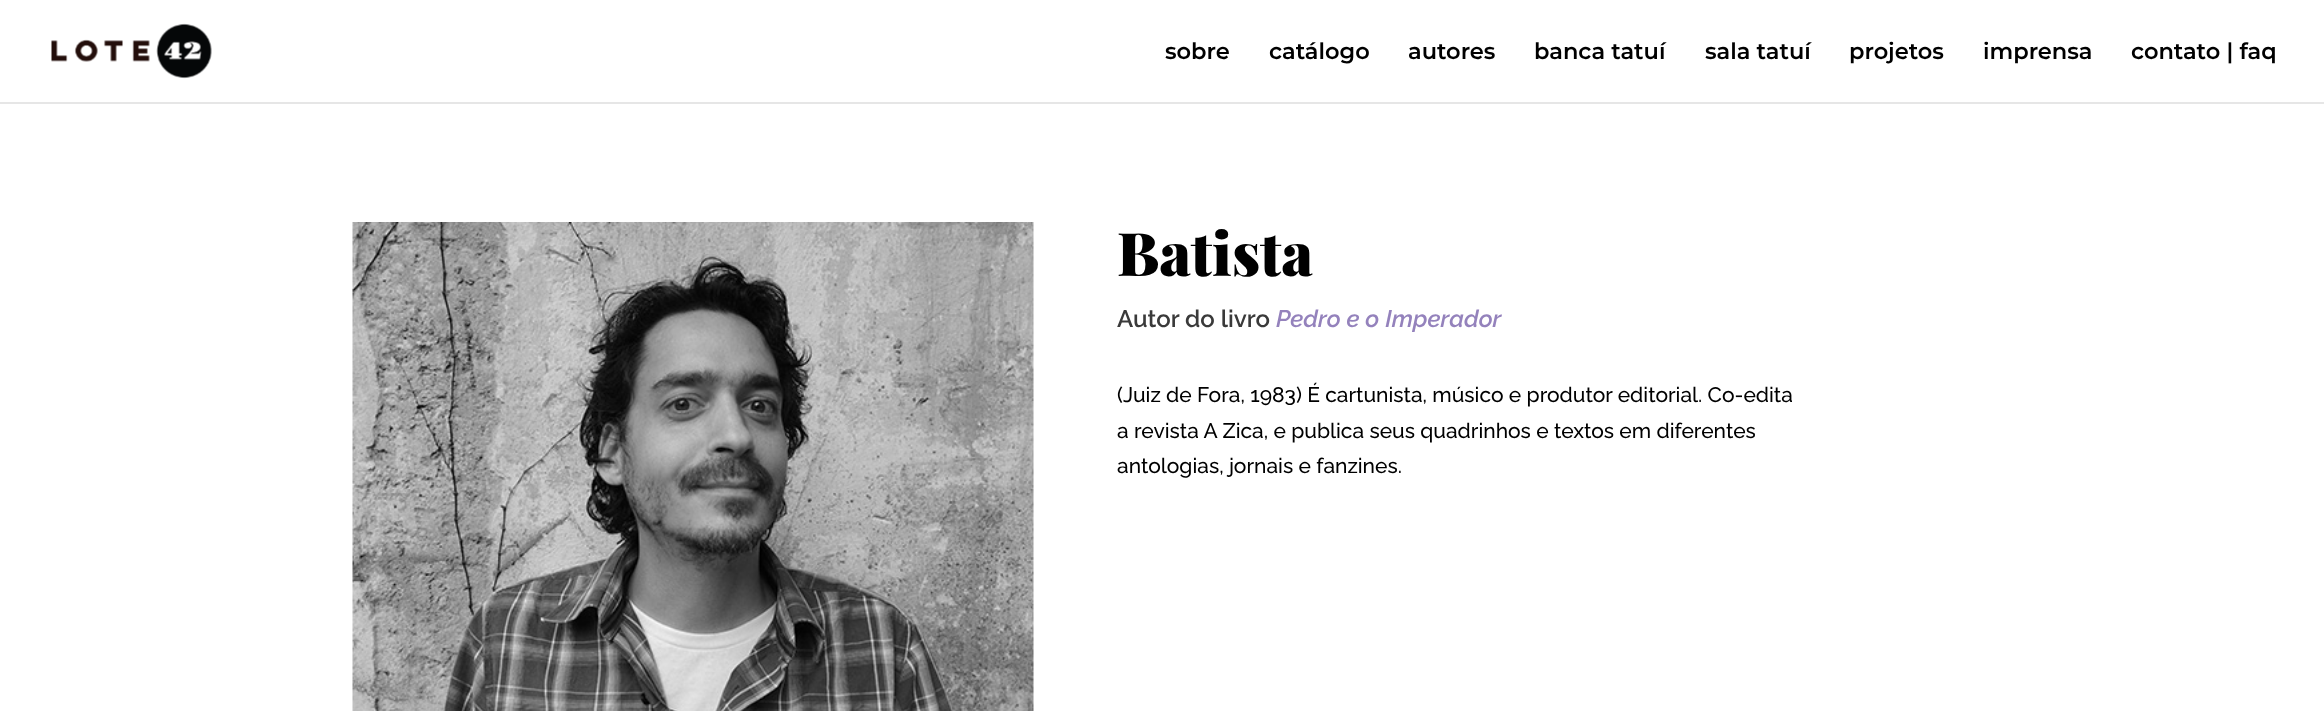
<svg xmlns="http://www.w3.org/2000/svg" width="2324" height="711">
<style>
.a{font:600 22.5px Montserrat;fill:#000}
.b{font:900 60px Playfair Display;fill:#000}
.c{font:600 24px Raleway;fill:#3a3a3a}
.d{font:italic 600 24px Raleway;fill:#9482bc}
.e{font:500 21px Raleway;fill:#000}
</style>
<rect width="100%" height="100%" fill="#fff"/>
<path fill="#e6e6e6" d="M0 102h2324v2H0z"/>
<image href="1.png" x="51" y="23" width="161" height="56"/>
<image href="2.png" x="352" y="222" width="682" height="489"/>
<text class="a" x="1165" y="59">sobre</text>
<text class="a" x="1269" y="59">catálogo</text>
<text class="a" x="1408" y="59">autores</text>
<text class="a" x="1534" y="59">banca tatuí</text>
<text class="a" x="1705" y="59">sala tatuí</text>
<text class="a" x="1849" y="59">projetos</text>
<text class="a" x="1983" y="59">imprensa</text>
<text class="a" x="2131" y="59">contato | faq</text>
<text class="b" x="1117" y="276">Batista</text>
<text class="c" x="1117" y="327">Autor do livro</text>
<text class="d" x="1276" y="327">Pedro e o Imperador</text>
<text class="e" x="1117" y="402">(Juiz de Fora, 1983) É cartunista, músico e produtor editorial. Co-edita</text>
<text class="e" x="1117" y="438">a revista A Zica, e publica seus quadrinhos e textos em diferentes</text>
<text class="e" x="1117" y="473">antologias, jornais e fanzines.</text>
</svg>
